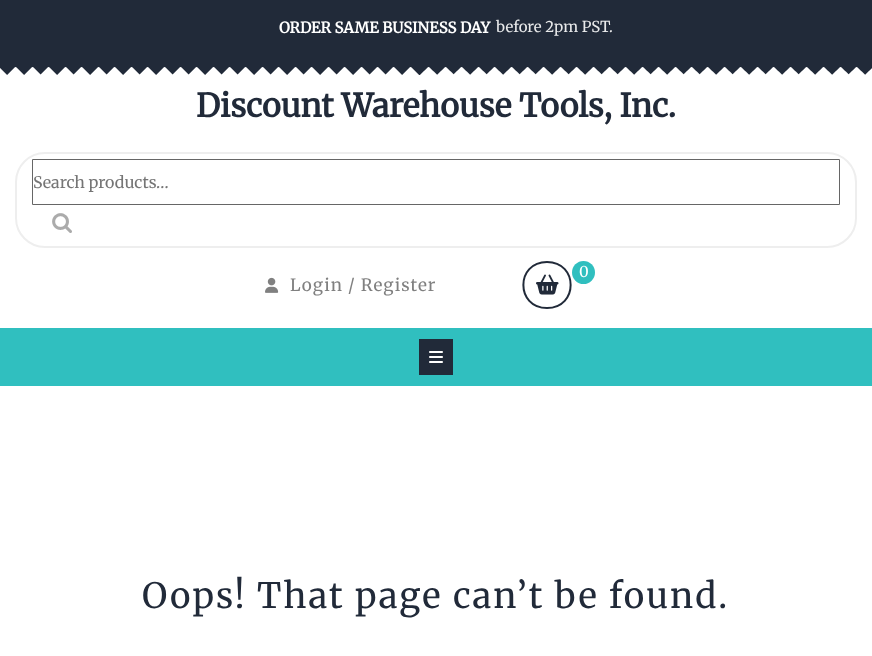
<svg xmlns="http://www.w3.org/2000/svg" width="872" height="656">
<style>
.a{font:bold 15px Merriweather;fill:#fff}
.b{font:300 15px Merriweather;fill:#e9eaeb}
.c{font:bold 32px Merriweather;fill:#212a39}
.d{font:300 16px Merriweather;fill:#757575}
.e{font:300 15px Merriweather;fill:#fff}
.f{font:300 17px Merriweather;letter-spacing:1px;fill:#808080}
.g{font:300 35px Merriweather;letter-spacing:2px;fill:#212a39}
</style>
<rect width="100%" height="100%" fill="#fff"/>
<path fill="#212a39" d="M0 0h872v75H0z"/>
<image href="1.png" x="0" y="67" width="872" height="8"/>
<rect fill="none" stroke="#eee" stroke-width="2" x="16" y="153" width="840" height="94" rx="29"/>
<path fill="none" stroke="#666" d="M32.5 159.5h807v45H32.5z"/>
<image href="2.png" x="52" y="213" width="20" height="20"/>
<path fill="none" stroke="#212a39" stroke-width="2" d="M547 262c31.5 0 31.5 46 0 46c-31.5 0-31.5-46 0-46z"/>
<image href="3.png" x="536" y="274" width="23" height="21"/>
<circle fill="#30bfbf" cx="583.5" cy="272.5" r="11.5"/>
<image href="4.png" x="265" y="277" width="14" height="16"/>
<path fill="#30bfbf" d="M0 328h872v58H0z"/>
<path fill="#212a39" d="M419 339h34v36H419z"/>
<image href="5.png" x="429" y="351" width="14" height="12"/>
<text class="a" x="279" y="33">ORDER SAME BUSINESS DAY</text>
<text class="b" x="496" y="32">before 2pm PST.</text>
<text class="c" x="196" y="117">Discount Warehouse Tools, Inc.</text>
<text class="d" x="33" y="188">Search products…</text>
<text class="e" x="579" y="277">0</text>
<text class="f" x="290" y="291">Login / Register</text>
<text class="g" x="142" y="608">Oops! That page can’t be found.</text>
</svg>
